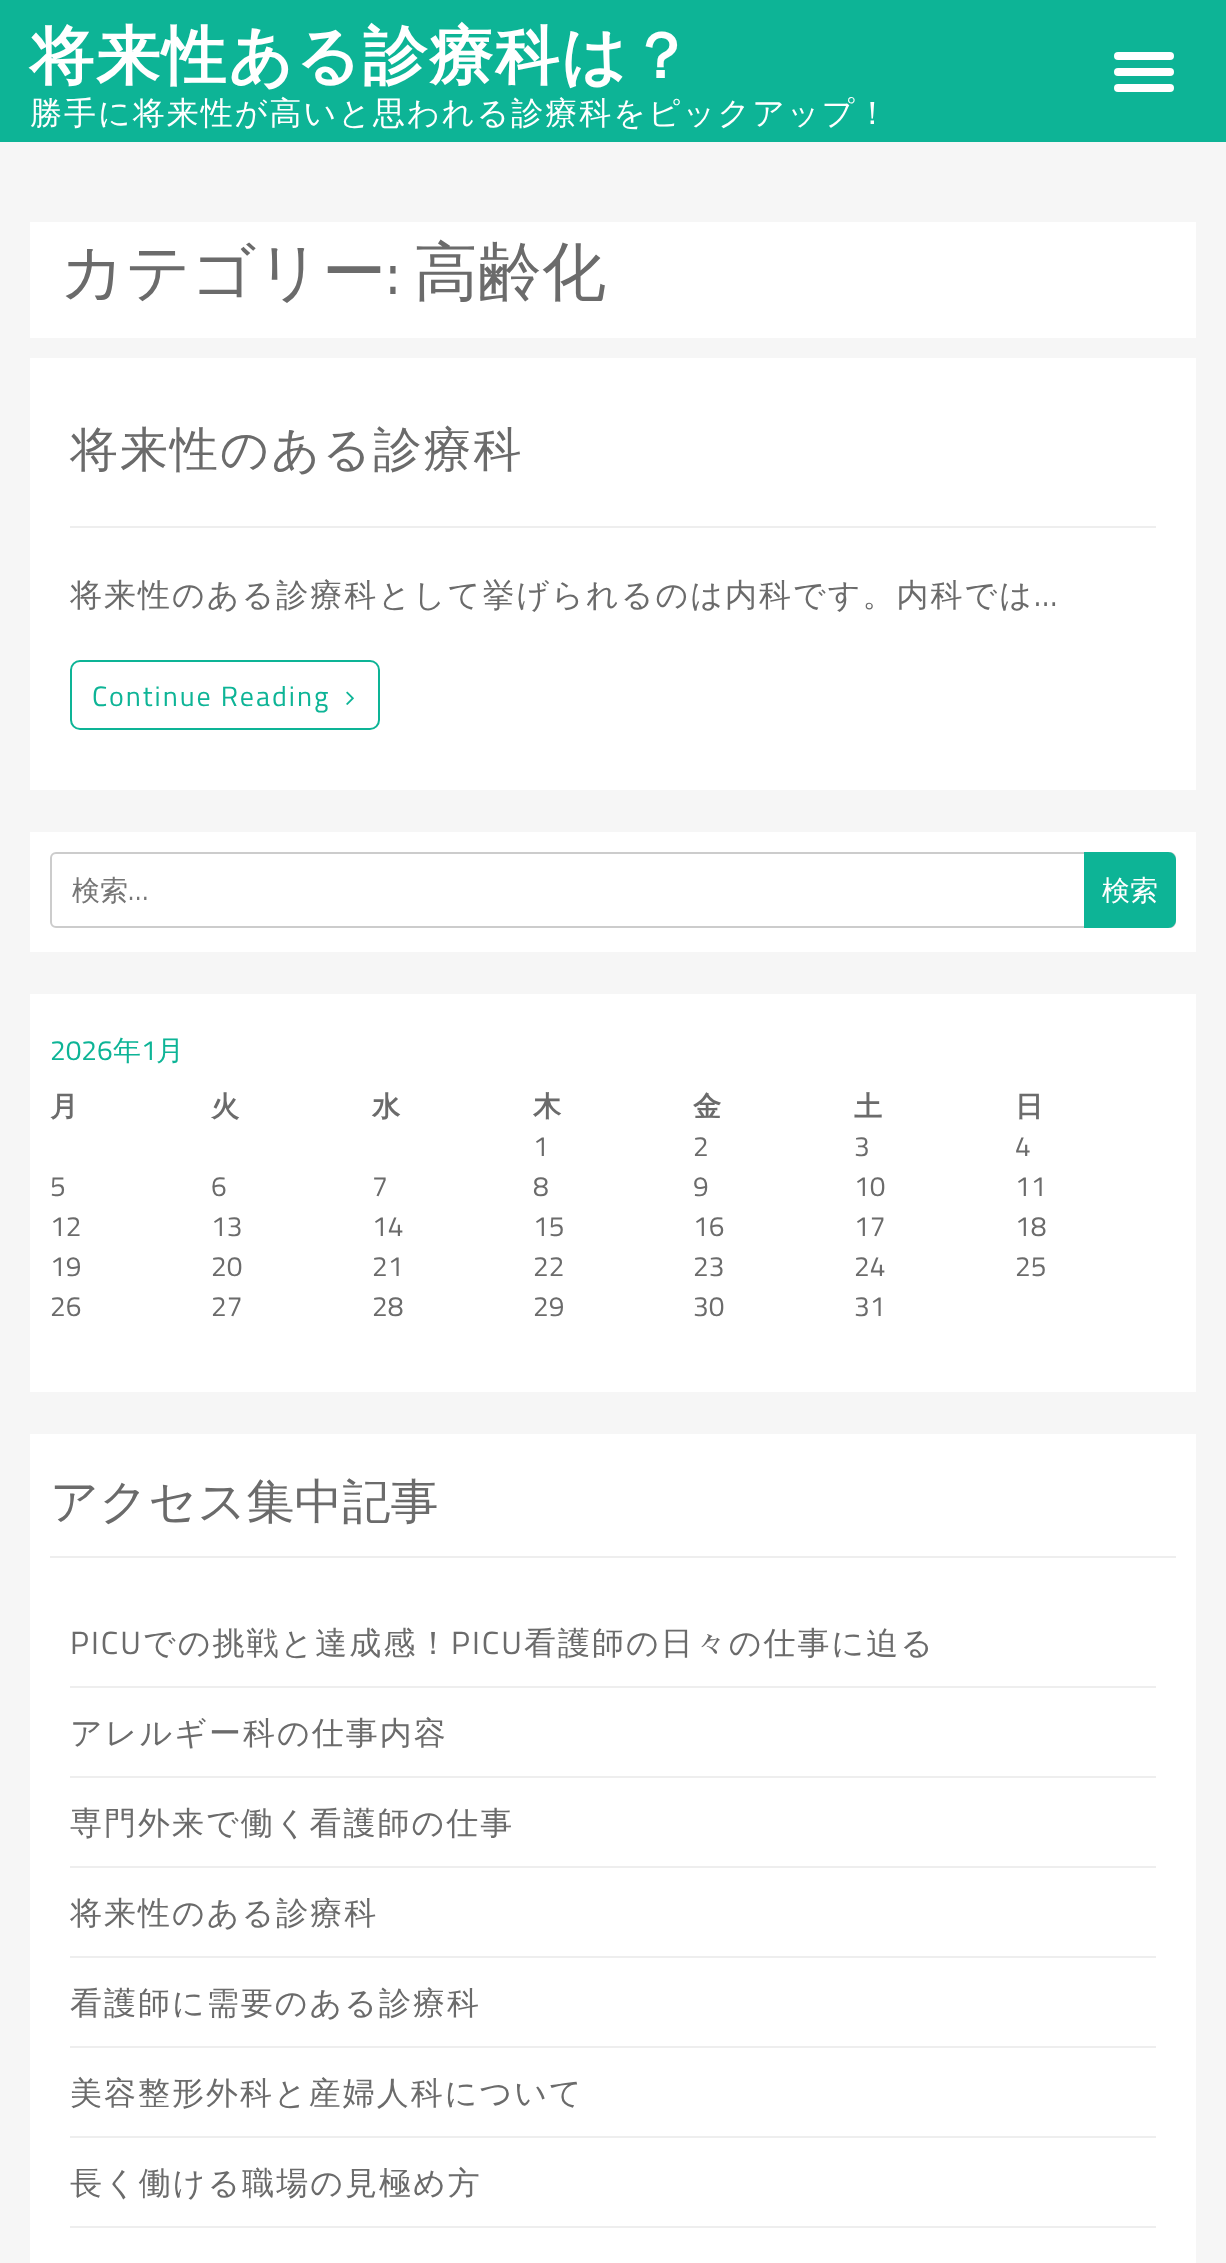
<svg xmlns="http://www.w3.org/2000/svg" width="1226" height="2263">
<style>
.a{font:bold 64px WenQuanYi Zen Hei;letter-spacing:2px;fill:#fff}
.b{font:500 32px WenQuanYi Zen Hei;letter-spacing:2px;fill:#fff}
.c{font:500 64px WenQuanYi Zen Hei;fill:#6b6b6b}
.d{font:64px Titillium Web;fill:#6b6b6b}
.e{font:500 48px WenQuanYi Zen Hei;letter-spacing:2px;fill:#6b6b6b}
.f{font:500 32px WenQuanYi Zen Hei;letter-spacing:2px;fill:#6b6b6b}
.g{font:32px Titillium Web;letter-spacing:2px;fill:#6b6b6b}
.h{font:28px Titillium Web;letter-spacing:2px;fill:#0db496}
.i{font:500 28px WenQuanYi Zen Hei;fill:#757575}
.j{font:28px Titillium Web;fill:#757575}
.k{font:500 28px WenQuanYi Zen Hei;fill:#fff}
.l{font:28px Titillium Web;fill:#0db496}
.m{font:500 28px WenQuanYi Zen Hei;fill:#0db496}
.n{font:bold 28px WenQuanYi Zen Hei;fill:#6b6b6b}
.o{font:28px Titillium Web;fill:#6b6b6b}
.p{font:500 48px WenQuanYi Zen Hei;fill:#6b6b6b}
</style>
<rect width="100%" height="100%" fill="#f6f6f6"/>
<path fill="#0db496" d="M0 0h1226v142H0z"/>
<rect fill="#fff" x="1114" y="52" width="60" height="8" rx="4"/>
<rect fill="#fff" x="1114" y="68" width="60" height="8" rx="4"/>
<rect fill="#fff" x="1114" y="84" width="60" height="8" rx="4"/>
<path fill="#fff" d="M30 222h1166v116H30z"/>
<path fill="#fff" d="M30 358h1166v432H30z"/>
<path fill="#eee" d="M70 526h1086v2H70z"/>
<rect fill="none" stroke="#0db496" stroke-width="2" x="71" y="661" width="308" height="68" rx="9"/>
<image href="1.png" x="346" y="691" width="8" height="14"/>
<path fill="#fff" d="M30 832h1166v120H30z"/>
<rect fill="none" stroke="#ccc" stroke-width="2" x="51" y="853" width="1124" height="74" rx="5"/>
<path fill="#0db496" d="M1084 852h84c4.5 0 8 3.5 8 8v60c0 4.5-3.5 8-8 8h-84z"/>
<path fill="#fff" d="M30 994h1166v398H30z"/>
<path fill="#fff" d="M30 1434h1166v829H30z"/>
<path fill="#eee" d="M50 1556h1126v2H50z"/>
<path fill="#eee" d="M70 1686h1086v2H70z"/>
<path fill="#eee" d="M70 1776h1086v2H70z"/>
<path fill="#eee" d="M70 1866h1086v2H70z"/>
<path fill="#eee" d="M70 1956h1086v2H70z"/>
<path fill="#eee" d="M70 2046h1086v2H70z"/>
<path fill="#eee" d="M70 2136h1086v2H70z"/>
<path fill="#eee" d="M70 2226h1086v2H70z"/>
<text class="a" x="30" y="78">将来性ある診療科は？</text>
<text class="b" x="30" y="124">勝手に将来性が高いと思われる診療科をピックアップ！</text>
<text class="c" x="60" y="294">カテゴリー</text>
<text class="d" x="386" y="294">:</text>
<text class="c" x="414" y="294">高齢化</text>
<text class="e" x="70" y="466">将来性のある診療科</text>
<text class="f" x="70" y="606">将来性のある診療科として挙げられるのは内科です。内科では</text>
<text class="g" x="1034" y="606">…</text>
<text class="h" x="92" y="706">Continue Reading</text>
<text class="i" x="72" y="900">検索</text>
<text class="j" x="128" y="900">…</text>
<text class="k" x="1102" y="900">検索</text>
<text class="l" x="50" y="1060">2026</text>
<text class="m" x="113" y="1060">年</text>
<text class="l" x="141" y="1060">1</text>
<text class="m" x="156" y="1060">月</text>
<text class="n" x="50" y="1116">月</text>
<text class="n" x="211" y="1116">火</text>
<text class="n" x="372" y="1116">水</text>
<text class="n" x="533" y="1116">木</text>
<text class="n" x="693" y="1116">金</text>
<text class="n" x="854" y="1116">土</text>
<text class="n" x="1015" y="1116">日</text>
<text class="o" x="533" y="1156">1</text>
<text class="o" x="693" y="1156">2</text>
<text class="o" x="854" y="1156">3</text>
<text class="o" x="1015" y="1156">4</text>
<text class="o" x="50" y="1196">5</text>
<text class="o" x="211" y="1196">6</text>
<text class="o" x="372" y="1196">7</text>
<text class="o" x="533" y="1196">8</text>
<text class="o" x="693" y="1196">9</text>
<text class="o" x="854" y="1196">10</text>
<text class="o" x="1015" y="1196">11</text>
<text class="o" x="50" y="1236">12</text>
<text class="o" x="211" y="1236">13</text>
<text class="o" x="372" y="1236">14</text>
<text class="o" x="533" y="1236">15</text>
<text class="o" x="693" y="1236">16</text>
<text class="o" x="854" y="1236">17</text>
<text class="o" x="1015" y="1236">18</text>
<text class="o" x="50" y="1276">19</text>
<text class="o" x="211" y="1276">20</text>
<text class="o" x="372" y="1276">21</text>
<text class="o" x="533" y="1276">22</text>
<text class="o" x="693" y="1276">23</text>
<text class="o" x="854" y="1276">24</text>
<text class="o" x="1015" y="1276">25</text>
<text class="o" x="50" y="1316">26</text>
<text class="o" x="211" y="1316">27</text>
<text class="o" x="372" y="1316">28</text>
<text class="o" x="533" y="1316">29</text>
<text class="o" x="693" y="1316">30</text>
<text class="o" x="854" y="1316">31</text>
<text class="p" x="50" y="1518">アクセス集中記事</text>
<text class="g" x="70" y="1654">PICU</text>
<text class="f" x="143" y="1654">での挑戦と達成感！</text>
<text class="g" x="451" y="1654">PICU</text>
<text class="f" x="524" y="1654">看護師の日々の仕事に迫る</text>
<text class="f" x="70" y="1744">アレルギー科の仕事内容</text>
<text class="f" x="70" y="1834">専門外来で働く看護師の仕事</text>
<text class="f" x="70" y="1924">将来性のある診療科</text>
<text class="f" x="70" y="2014">看護師に需要のある診療科</text>
<text class="f" x="70" y="2104">美容整形外科と産婦人科について</text>
<text class="f" x="70" y="2194">長く働ける職場の見極め方</text>
</svg>
